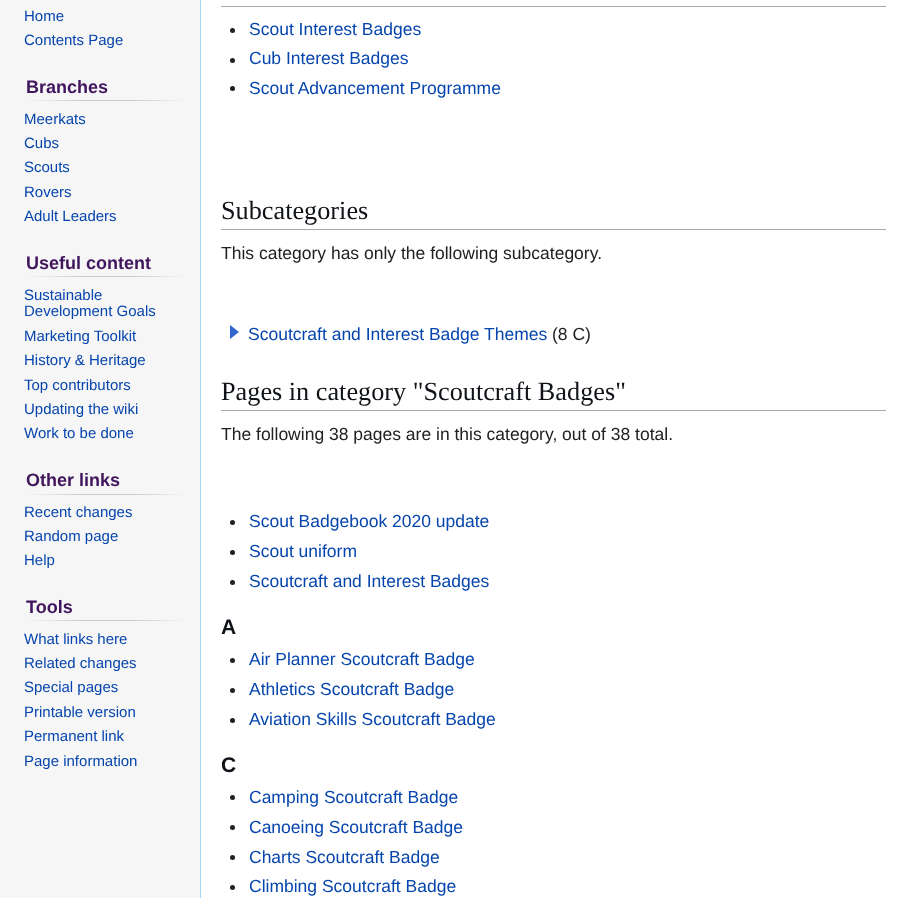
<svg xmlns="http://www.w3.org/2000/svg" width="906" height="898">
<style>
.a{font:15px Liberation Sans;fill:#0645ad}
.b{font:bold 18px Liberation Sans;fill:#40155c}
.c{font:17.5px Liberation Sans;fill:#0645ad}
.d{font:26.25px Liberation Serif;fill:#101418}
.e{font:17.5px Liberation Sans;fill:#202122}
.f{font:bold 21px Liberation Sans;fill:#101418}
</style>
<defs>
<linearGradient id="g1" gradientUnits="userSpaceOnUse" x1="26" y1="101" x2="188" y2="101"><stop offset="0" stop-color="#f6f6f6"/><stop offset="0.33" stop-color="#c8ccd1"/><stop offset="0.66" stop-color="#c8ccd1"/><stop offset="1" stop-color="#f6f6f6"/></linearGradient>
<linearGradient id="g2" gradientUnits="userSpaceOnUse" x1="26" y1="277" x2="188" y2="277"><stop offset="0" stop-color="#f6f6f6"/><stop offset="0.33" stop-color="#c8ccd1"/><stop offset="0.66" stop-color="#c8ccd1"/><stop offset="1" stop-color="#f6f6f6"/></linearGradient>
<linearGradient id="g3" gradientUnits="userSpaceOnUse" x1="26" y1="494" x2="188" y2="494"><stop offset="0" stop-color="#f6f6f6"/><stop offset="0.33" stop-color="#c8ccd1"/><stop offset="0.66" stop-color="#c8ccd1"/><stop offset="1" stop-color="#f6f6f6"/></linearGradient>
<linearGradient id="g4" gradientUnits="userSpaceOnUse" x1="26" y1="621" x2="188" y2="621"><stop offset="0" stop-color="#f6f6f6"/><stop offset="0.33" stop-color="#c8ccd1"/><stop offset="0.66" stop-color="#c8ccd1"/><stop offset="1" stop-color="#f6f6f6"/></linearGradient>
</defs>
<rect width="100%" height="100%" fill="#f6f6f6"/>
<path fill="url(#g1)" d="M26 100h162v1H26z"/>
<path fill="url(#g2)" d="M26 276h162v1H26z"/>
<path fill="url(#g3)" d="M26 494h162v1H26z"/>
<path fill="url(#g4)" d="M26 620h162v1H26z"/>
<path fill="#fff" d="M201 0h705v898H201z"/>
<path fill="#a7d7f9" d="M200 0h1v898H200z"/>
<path fill="#a2a9b1" d="M221 6h665v1H221z"/>
<circle fill="#202122" cx="232.5" cy="30.5" r="2.5"/>
<circle fill="#202122" cx="232.5" cy="60.5" r="2.5"/>
<circle fill="#202122" cx="232.5" cy="88.5" r="2.5"/>
<path fill="#a2a9b1" d="M221 229h665v1H221z"/>
<path fill="#36c" d="M239 332l-9 7v-14z"/>
<path fill="#a2a9b1" d="M221 410h665v1H221z"/>
<circle fill="#202122" cx="232.5" cy="522.5" r="2.5"/>
<circle fill="#202122" cx="232.5" cy="552.5" r="2.5"/>
<circle fill="#202122" cx="232.5" cy="582.5" r="2.5"/>
<circle fill="#202122" cx="232.5" cy="660.5" r="2.5"/>
<circle fill="#202122" cx="232.5" cy="690.5" r="2.5"/>
<circle fill="#202122" cx="232.5" cy="720.5" r="2.5"/>
<circle fill="#202122" cx="232.5" cy="797.5" r="2.5"/>
<circle fill="#202122" cx="232.5" cy="827.5" r="2.5"/>
<circle fill="#202122" cx="232.5" cy="857.5" r="2.5"/>
<circle fill="#202122" cx="232.5" cy="887.5" r="2.5"/>
<text class="a" x="24" y="21">Home</text>
<text class="a" x="24" y="45">Contents Page</text>
<text class="b" x="26" y="93">Branches</text>
<text class="a" x="24" y="124">Meerkats</text>
<text class="a" x="24" y="148">Cubs</text>
<text class="a" x="24" y="172">Scouts</text>
<text class="a" x="24" y="197">Rovers</text>
<text class="a" x="24" y="221">Adult Leaders</text>
<text class="b" x="26" y="269">Useful content</text>
<text class="a" x="24" y="300">Sustainable</text>
<text class="a" x="24" y="316">Development Goals</text>
<text class="a" x="24" y="341">Marketing Toolkit</text>
<text class="a" x="24" y="365">History &amp; Heritage</text>
<text class="a" x="24" y="390">Top contributors</text>
<text class="a" x="24" y="414">Updating the wiki</text>
<text class="a" x="24" y="438">Work to be done</text>
<text class="b" x="26" y="486">Other links</text>
<text class="a" x="24" y="517">Recent changes</text>
<text class="a" x="24" y="541">Random page</text>
<text class="a" x="24" y="565">Help</text>
<text class="b" x="26" y="613">Tools</text>
<text class="a" x="24" y="644">What links here</text>
<text class="a" x="24" y="668">Related changes</text>
<text class="a" x="24" y="692">Special pages</text>
<text class="a" x="24" y="717">Printable version</text>
<text class="a" x="24" y="741">Permanent link</text>
<text class="a" x="24" y="766">Page information</text>
<text class="c" x="249" y="35">Scout Interest Badges</text>
<text class="c" x="249" y="64">Cub Interest Badges</text>
<text class="c" x="249" y="94">Scout Advancement Programme</text>
<text class="d" x="221" y="219">Subcategories</text>
<text class="e" x="221" y="259">This category has only the following subcategory.</text>
<text class="c" x="248" y="340">Scoutcraft and Interest Badge Themes</text>
<text class="e" x="552" y="340">(8 C)</text>
<text class="d" x="221" y="400">Pages in category "Scoutcraft Badges"</text>
<text class="e" x="221" y="440">The following 38 pages are in this category, out of 38 total.</text>
<text class="c" x="249" y="527">Scout Badgebook 2020 update</text>
<text class="c" x="249" y="557">Scout uniform</text>
<text class="c" x="249" y="587">Scoutcraft and Interest Badges</text>
<text class="f" x="221" y="634">A</text>
<text class="c" x="249" y="665">Air Planner Scoutcraft Badge</text>
<text class="c" x="249" y="695">Athletics Scoutcraft Badge</text>
<text class="c" x="249" y="725">Aviation Skills Scoutcraft Badge</text>
<text class="f" x="221" y="772">C</text>
<text class="c" x="249" y="803">Camping Scoutcraft Badge</text>
<text class="c" x="249" y="833">Canoeing Scoutcraft Badge</text>
<text class="c" x="249" y="863">Charts Scoutcraft Badge</text>
<text class="c" x="249" y="892">Climbing Scoutcraft Badge</text>
</svg>
